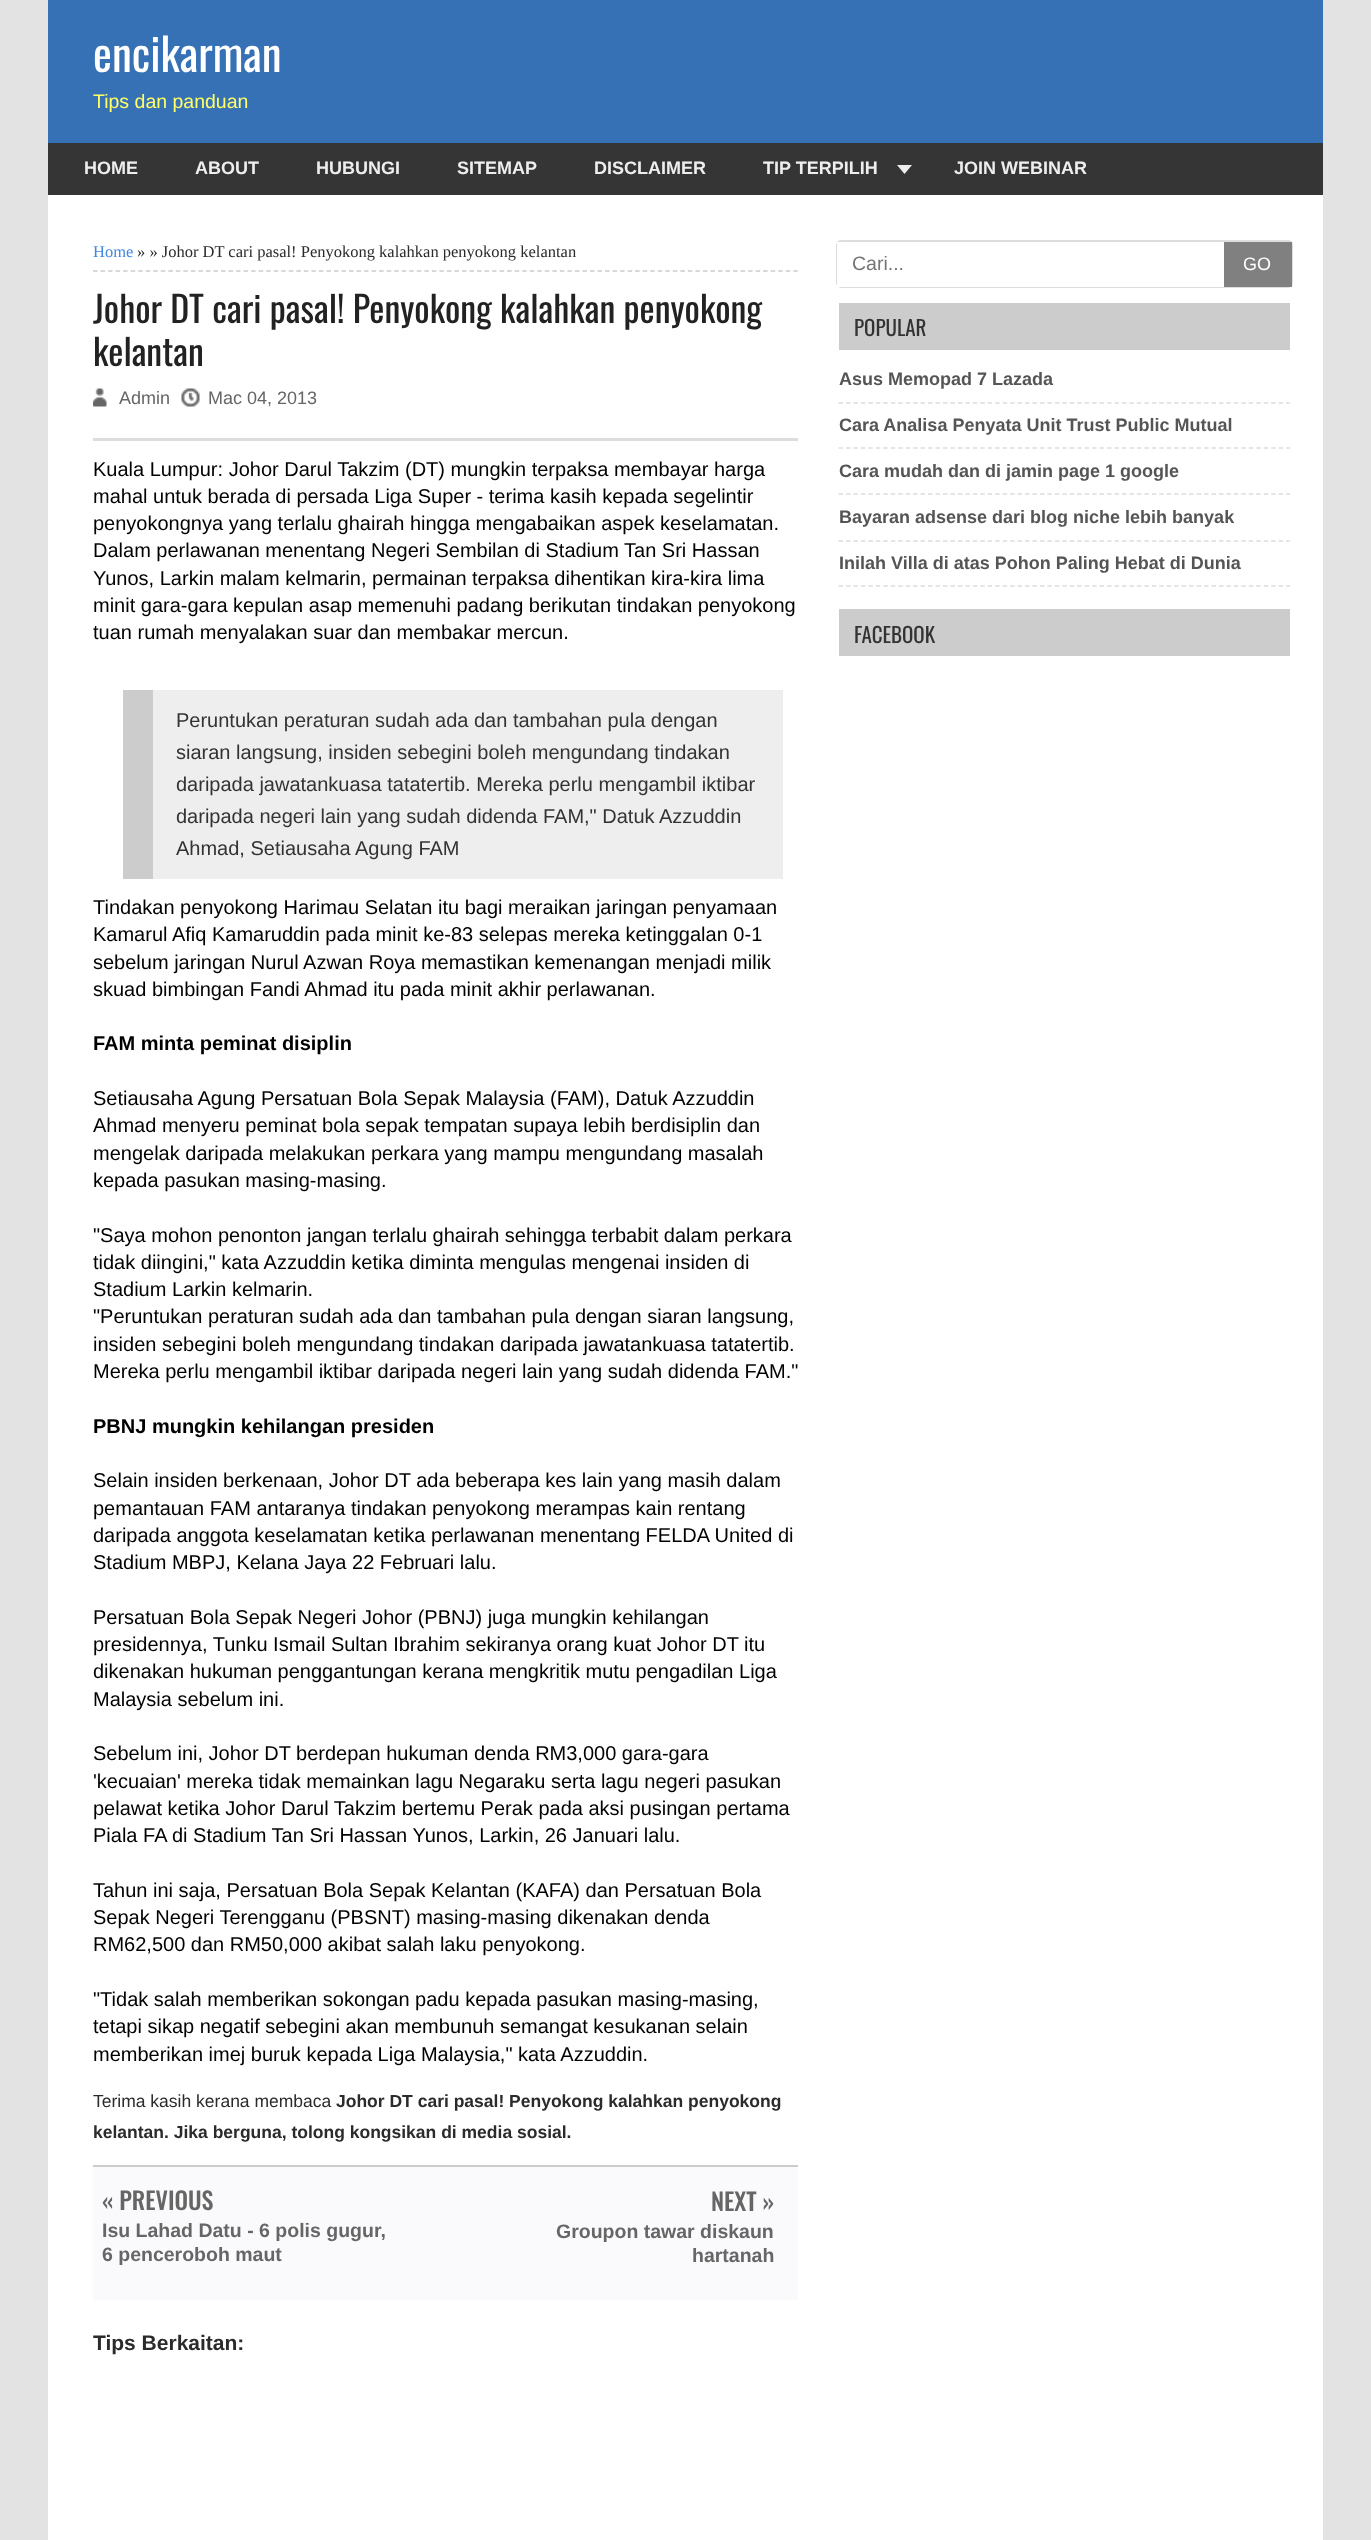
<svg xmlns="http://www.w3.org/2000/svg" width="1371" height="2540">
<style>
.a{font:45px Oswald;fill:#fff}
.b{font:19.5px Liberation Sans;fill:#ff6}
.c{font:bold 18px Liberation Sans;fill:#eee}
.d{font:16.5px Liberation Serif;fill:#48d}
.e{font:16.5px Liberation Serif;fill:#2b2b2b}
.f{font:36px Oswald;fill:#222}
.g{font:18px Liberation Sans;fill:#666}
.h{font:20px Liberation Sans;fill:#000}
.i{font:20px Liberation Sans;fill:#333}
.j{font:bold 20px Liberation Sans;fill:#000}
.k{font:17.5px Liberation Sans;fill:#2b2b2b}
.l{font:bold 17.5px Liberation Sans;fill:#2b2b2b}
.m{font:500 24px Oswald;fill:#666}
.n{font:bold 19.5px Liberation Sans;fill:#666}
.o{font:bold 21px Liberation Sans;fill:#2b2b2b}
.p{font:19.5px Liberation Sans;fill:#757575}
.q{font:18px Liberation Sans;fill:#fff}
.r{font:21px Oswald;fill:#333}
.s{font:bold 18px Liberation Sans;fill:#555}
</style>
<rect width="100%" height="100%" fill="#e3e3e3"/>
<path fill="#fff" d="M48 195h1275v2345H48z"/>
<path fill="#3771b5" d="M48 0h1275v143H48z"/>
<path fill="#353535" d="M48 143h1275v52H48z"/>
<path fill="#eee" d="M897 165h15l-7.5 9z"/>
<path fill="none" stroke="#ccc" stroke-width="1.5" stroke-dasharray="4.5 3.03" d="M93 271h705"/>
<image href="1.png" x="93" y="388" width="14" height="19"/>
<image href="2.png" x="181" y="388" width="19" height="19"/>
<path fill="#ddd" d="M93 438h705v3H93z"/>
<path fill="#eee" d="M153 690h630v189H153z"/>
<path fill="#ccc" d="M123 690h30v189H123z"/>
<path fill="#fafafc" d="M93 2167h705v133H93z"/>
<path fill="#ccc" d="M93 2165h705v2H93z"/>
<rect fill="none" stroke="#ddd" stroke-width="2" x="837" y="241" width="455" height="46" rx="4"/>
<path fill="#fff" d="M837 242h387v45H837z"/>
<path fill="#808080" d="M1224 242h68v45H1224z"/>
<path fill="#ccc" d="M839 303h451v47H839z"/>
<path fill="none" stroke="#ddd" stroke-width="1.5" stroke-dasharray="4.5 2.96" d="M838.5 403h451.5"/>
<path fill="none" stroke="#ddd" stroke-width="1.5" stroke-dasharray="4.5 2.96" d="M838.5 448h451.5"/>
<path fill="none" stroke="#ddd" stroke-width="1.5" stroke-dasharray="4.5 2.96" d="M838.5 494h451.5"/>
<path fill="none" stroke="#ddd" stroke-width="1.5" stroke-dasharray="4.5 2.96" d="M838.5 541h451.5"/>
<path fill="none" stroke="#ddd" stroke-width="1.5" stroke-dasharray="4.5 2.96" d="M838.5 586h451.5"/>
<path fill="#ccc" d="M839 609h451v47H839z"/>
<text class="a" x="93" y="72">encikarman</text>
<text class="b" x="93" y="108">Tips dan panduan</text>
<text class="c" x="84" y="174">HOME</text>
<text class="c" x="195" y="174">ABOUT</text>
<text class="c" x="316" y="174">HUBUNGI</text>
<text class="c" x="457" y="174">SITEMAP</text>
<text class="c" x="594" y="174">DISCLAIMER</text>
<text class="c" x="763" y="174">TIP TERPILIH</text>
<text class="c" x="954" y="174">JOIN WEBINAR</text>
<text class="d" x="93" y="257">Home</text>
<text class="e" x="137" y="257">» » Johor DT cari pasal! Penyokong kalahkan penyokong kelantan</text>
<text class="f" x="93" y="323">Johor DT cari pasal! Penyokong kalahkan penyokong</text>
<text class="f" x="93" y="366">kelantan</text>
<text class="g" x="119" y="404">Admin</text>
<text class="g" x="208" y="404">Mac 04, 2013</text>
<text class="h" x="93" y="476">Kuala Lumpur: Johor Darul Takzim (DT) mungkin terpaksa membayar harga</text>
<text class="h" x="93" y="503">mahal untuk berada di persada Liga Super - terima kasih kepada segelintir</text>
<text class="h" x="93" y="530">penyokongnya yang terlalu ghairah hingga mengabaikan aspek keselamatan.</text>
<text class="h" x="93" y="557">Dalam perlawanan menentang Negeri Sembilan di Stadium Tan Sri Hassan</text>
<text class="h" x="93" y="585">Yunos, Larkin malam kelmarin, permainan terpaksa dihentikan kira-kira lima</text>
<text class="h" x="93" y="612">minit gara-gara kepulan asap memenuhi padang berikutan tindakan penyokong</text>
<text class="h" x="93" y="639">tuan rumah menyalakan suar dan membakar mercun.</text>
<text class="i" x="176" y="727">Peruntukan peraturan sudah ada dan tambahan pula dengan</text>
<text class="i" x="176" y="759">siaran langsung, insiden sebegini boleh mengundang tindakan</text>
<text class="i" x="176" y="791">daripada jawatankuasa tatatertib. Mereka perlu mengambil iktibar</text>
<text class="i" x="176" y="823">daripada negeri lain yang sudah didenda FAM," Datuk Azzuddin</text>
<text class="i" x="176" y="855">Ahmad, Setiausaha Agung FAM</text>
<text class="h" x="93" y="914">Tindakan penyokong Harimau Selatan itu bagi meraikan jaringan penyamaan</text>
<text class="h" x="93" y="941">Kamarul Afiq Kamaruddin pada minit ke-83 selepas mereka ketinggalan 0-1</text>
<text class="h" x="93" y="969">sebelum jaringan Nurul Azwan Roya memastikan kemenangan menjadi milik</text>
<text class="h" x="93" y="996">skuad bimbingan Fandi Ahmad itu pada minit akhir perlawanan.</text>
<text class="j" x="93" y="1050">FAM minta peminat disiplin</text>
<text class="h" x="93" y="1105">Setiausaha Agung Persatuan Bola Sepak Malaysia (FAM), Datuk Azzuddin</text>
<text class="h" x="93" y="1132">Ahmad menyeru peminat bola sepak tempatan supaya lebih berdisiplin dan</text>
<text class="h" x="93" y="1160">mengelak daripada melakukan perkara yang mampu mengundang masalah</text>
<text class="h" x="93" y="1187">kepada pasukan masing-masing.</text>
<text class="h" x="93" y="1242">"Saya mohon penonton jangan terlalu ghairah sehingga terbabit dalam perkara</text>
<text class="h" x="93" y="1269">tidak diingini," kata Azzuddin ketika diminta mengulas mengenai insiden di</text>
<text class="h" x="93" y="1296">Stadium Larkin kelmarin.</text>
<text class="h" x="93" y="1323">"Peruntukan peraturan sudah ada dan tambahan pula dengan siaran langsung,</text>
<text class="h" x="93" y="1351">insiden sebegini boleh mengundang tindakan daripada jawatankuasa tatatertib.</text>
<text class="h" x="93" y="1378">Mereka perlu mengambil iktibar daripada negeri lain yang sudah didenda FAM."</text>
<text class="j" x="93" y="1433">PBNJ mungkin kehilangan presiden</text>
<text class="h" x="93" y="1487">Selain insiden berkenaan, Johor DT ada beberapa kes lain yang masih dalam</text>
<text class="h" x="93" y="1515">pemantauan FAM antaranya tindakan penyokong merampas kain rentang</text>
<text class="h" x="93" y="1542">daripada anggota keselamatan ketika perlawanan menentang FELDA United di</text>
<text class="h" x="93" y="1569">Stadium MBPJ, Kelana Jaya 22 Februari lalu.</text>
<text class="h" x="93" y="1624">Persatuan Bola Sepak Negeri Johor (PBNJ) juga mungkin kehilangan</text>
<text class="h" x="93" y="1651">presidennya, Tunku Ismail Sultan Ibrahim sekiranya orang kuat Johor DT itu</text>
<text class="h" x="93" y="1678">dikenakan hukuman penggantungan kerana mengkritik mutu pengadilan Liga</text>
<text class="h" x="93" y="1706">Malaysia sebelum ini.</text>
<text class="h" x="93" y="1760">Sebelum ini, Johor DT berdepan hukuman denda RM3,000 gara-gara</text>
<text class="h" x="93" y="1788">'kecuaian' mereka tidak memainkan lagu Negaraku serta lagu negeri pasukan</text>
<text class="h" x="93" y="1815">pelawat ketika Johor Darul Takzim bertemu Perak pada aksi pusingan pertama</text>
<text class="h" x="93" y="1842">Piala FA di Stadium Tan Sri Hassan Yunos, Larkin, 26 Januari lalu.</text>
<text class="h" x="93" y="1897">Tahun ini saja, Persatuan Bola Sepak Kelantan (KAFA) dan Persatuan Bola</text>
<text class="h" x="93" y="1924">Sepak Negeri Terengganu (PBSNT) masing-masing dikenakan denda</text>
<text class="h" x="93" y="1951">RM62,500 dan RM50,000 akibat salah laku penyokong.</text>
<text class="h" x="93" y="2006">"Tidak salah memberikan sokongan padu kepada pasukan masing-masing,</text>
<text class="h" x="93" y="2033">tetapi sikap negatif sebegini akan membunuh semangat kesukanan selain</text>
<text class="h" x="93" y="2061">memberikan imej buruk kepada Liga Malaysia," kata Azzuddin.</text>
<text class="k" x="93" y="2107">Terima kasih kerana membaca</text>
<text class="l" x="336" y="2107">Johor DT cari pasal! Penyokong kalahkan penyokong</text>
<text class="l" x="93" y="2138">kelantan. Jika berguna, tolong kongsikan di media sosial.</text>
<text class="m" x="102" y="2210">« PREVIOUS</text>
<text class="n" x="102" y="2237">Isu Lahad Datu - 6 polis gugur,</text>
<text class="n" x="102" y="2261">6 penceroboh maut</text>
<text class="m" x="711" y="2211">NEXT »</text>
<text class="n" x="556" y="2238">Groupon tawar diskaun</text>
<text class="n" x="692" y="2262">hartanah</text>
<text class="o" x="93" y="2350">Tips Berkaitan:</text>
<text class="p" x="852" y="270">Cari...</text>
<text class="q" x="1243" y="270">GO</text>
<text class="r" x="854" y="336">POPULAR</text>
<text class="s" x="839" y="385">Asus Memopad 7 Lazada</text>
<text class="s" x="839" y="431">Cara Analisa Penyata Unit Trust Public Mutual</text>
<text class="s" x="839" y="477">Cara mudah dan di jamin page 1 google</text>
<text class="s" x="839" y="523">Bayaran adsense dari blog niche lebih banyak</text>
<text class="s" x="839" y="569">Inilah Villa di atas Pohon Paling Hebat di Dunia</text>
<text class="r" x="854" y="643">FACEBOOK</text>
</svg>
